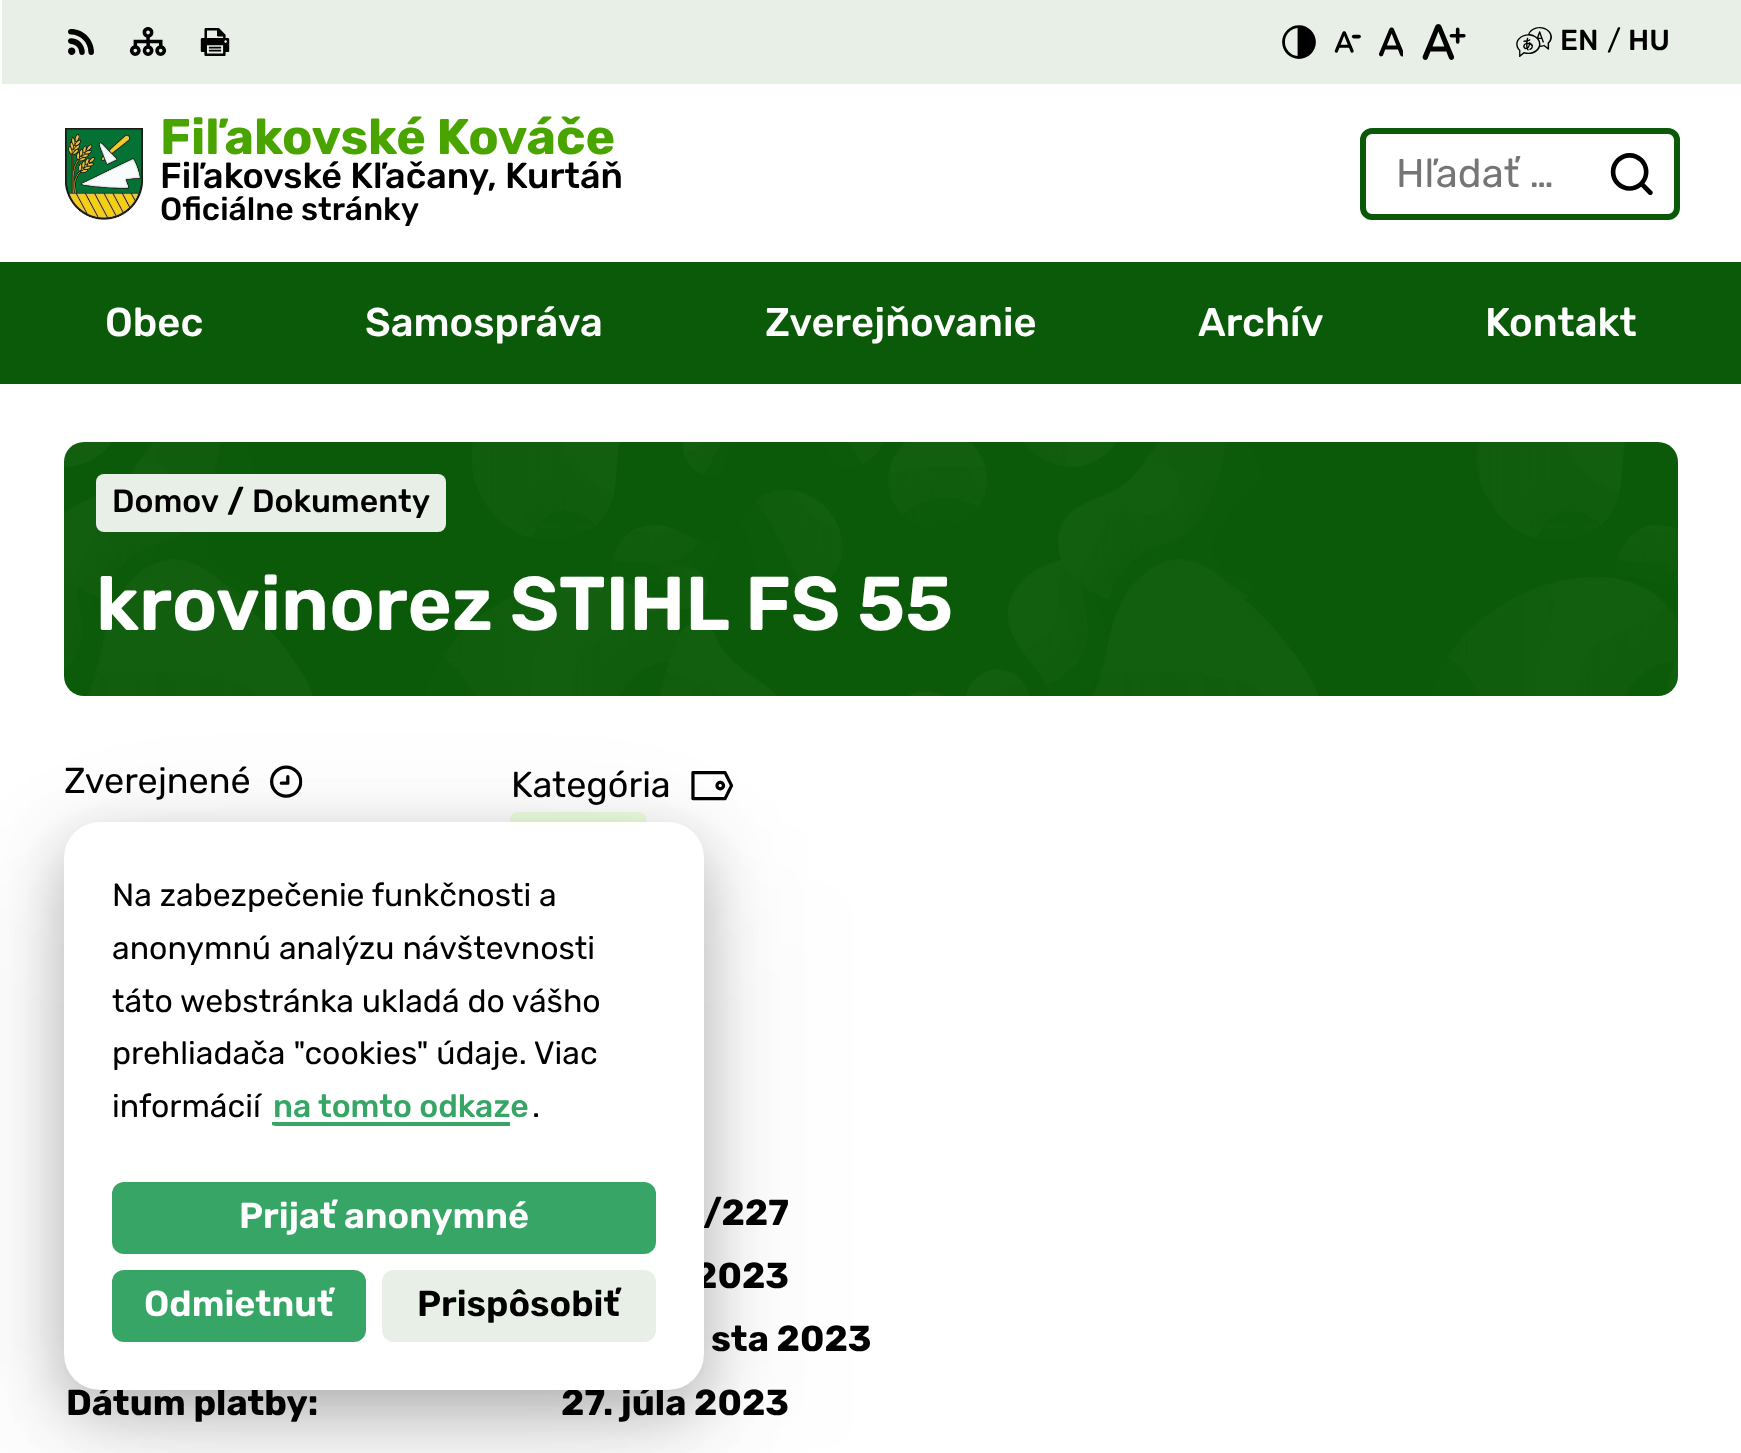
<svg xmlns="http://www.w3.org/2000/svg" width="1741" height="1453">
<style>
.a{font:500 29px Rubik;fill:#000}
.b{font:29px Rubik;fill:#000}
.c{font:bold 50px Rubik;fill:#4aa400}
.d{font:500 36px Rubik;fill:#000}
.e{font:500 32px Rubik;fill:#000}
.f{font:40px Rubik;fill:#757575}
.g{font:500 40px Rubik;fill:#fff}
.h{font:bold 32px Rubik;fill:#000}
.i{font:600 76px Rubik;fill:#fff}
.j{font:36px Rubik;fill:#000}
.k{font:bold 36px Rubik;fill:#000}
.l{font:32px Rubik;fill:#000}
.m{font:500 32px Rubik;fill:#37a565}
.n{font:600 36px Rubik;fill:#fff}
.o{font:600 36px Rubik;fill:#000}
</style>
<defs>
<clipPath id="clip1"><rect x="268" y="1088" width="264" height="38" rx="8"/></clipPath>
</defs>
<rect width="100%" height="100%" fill="#fff"/>
<path fill="#e7efe7" d="M2 0h1739v84H2z"/>
<image href="1.png" x="68" y="29" width="26" height="26"/>
<image href="2.png" x="129" y="27" width="38" height="29"/>
<image href="3.png" x="200" y="28" width="30" height="28"/>
<image href="4.png" x="1282" y="25" width="34" height="34"/>
<image href="5.png" x="1334" y="31" width="27" height="22"/>
<image href="6.png" x="1379" y="27" width="24" height="30"/>
<image href="7.png" x="1422" y="24" width="44" height="36"/>
<image href="8.png" x="1516" y="27" width="36" height="30"/>
<image href="9.png" x="65" y="128" width="78" height="92"/>
<rect fill="none" stroke="#0b5a09" stroke-width="6" x="1363" y="131" width="314" height="86" rx="9"/>
<image href="10.png" x="1610" y="153" width="43" height="42"/>
<path fill="#0b5a09" d="M0 262h1741v122H0z"/>
<rect fill="#0b5a09" x="64" y="442" width="1614" height="254" rx="20"/>
<image href="11.png" x="64" y="442" width="1614" height="254"/>
<rect fill="#e7efe7" x="96" y="474" width="350" height="58" rx="8"/>
<image href="12.png" x="270" y="765" width="33" height="33"/>
<image href="13.png" x="691" y="771" width="42" height="30"/>
<rect fill="#eeffe0" x="510" y="812" width="136" height="42" rx="8"/>
<rect fill="#0000000d" filter="blur(90px)" x="64" y="882" width="640" height="568" rx="36"/>
<rect fill="#0000000d" filter="blur(60px)" x="64" y="862" width="640" height="568" rx="36"/>
<rect fill="#00000040" filter="blur(30px)" x="64" y="842" width="640" height="568" rx="36"/>
<text class="a" x="1560" y="50">EN</text>
<text class="b" x="1607" y="50">/</text>
<text class="a" x="1628" y="50">HU</text>
<text class="c" x="160" y="154">Fiľakovské Kováče</text>
<text class="d" x="160" y="188">Fiľakovské Kľačany, Kurtáň</text>
<text class="e" x="160" y="220">Oficiálne stránky</text>
<text class="f" x="1396" y="187">Hľadať …</text>
<text class="g" x="105" y="336">Obec</text>
<text class="g" x="365" y="336">Samospráva</text>
<text class="g" x="765" y="336">Zverejňovanie</text>
<text class="g" x="1198" y="336">Archív</text>
<text class="g" x="1485" y="336">Kontakt</text>
<text class="e" x="112" y="512">Domov</text>
<text class="h" x="227" y="512">/</text>
<text class="e" x="252" y="512">Dokumenty</text>
<text class="i" x="96" y="630">krovinorez STIHL FS 55</text>
<text class="j" x="64" y="793">Zverejnené</text>
<text class="j" x="511" y="797">Kategória</text>
<text class="k" x="703" y="1225">/227</text>
<text class="k" x="694" y="1288">2023</text>
<text class="k" x="711" y="1351">sta 2023</text>
<text class="k" x="66" y="1415">Dátum platby:</text>
<text class="k" x="561" y="1415">27. júla 2023</text>
<rect fill="#fff" x="64" y="822" width="640" height="568" rx="36"/>
<text class="l" x="112" y="906">Na zabezpečenie funkčnosti a</text>
<text class="l" x="112" y="959">anonymnú analýzu návštevnosti</text>
<text class="l" x="112" y="1012">táto webstránka ukladá do vášho</text>
<text class="l" x="112" y="1064">prehliadača "cookies" údaje. Viac</text>
<text class="l" x="112" y="1117">informácií</text>
<text class="m" x="273" y="1117">na tomto odkaze</text>
<g clip-path="url(#clip1)">
<path fill="#37a565" d="M272 1122h238v4H272z"/>
</g>
<text class="l" x="532" y="1117">.</text>
<rect fill="#37a565" x="112" y="1182" width="544" height="72" rx="12"/>
<text class="n" x="239" y="1228">Prijať anonymné</text>
<rect fill="#37a565" x="112" y="1270" width="254" height="72" rx="12"/>
<text class="n" x="144" y="1316">Odmietnuť</text>
<rect fill="#e7efe7" x="382" y="1270" width="274" height="72" rx="12"/>
<text class="o" x="417" y="1316">Prispôsobiť</text>
</svg>
